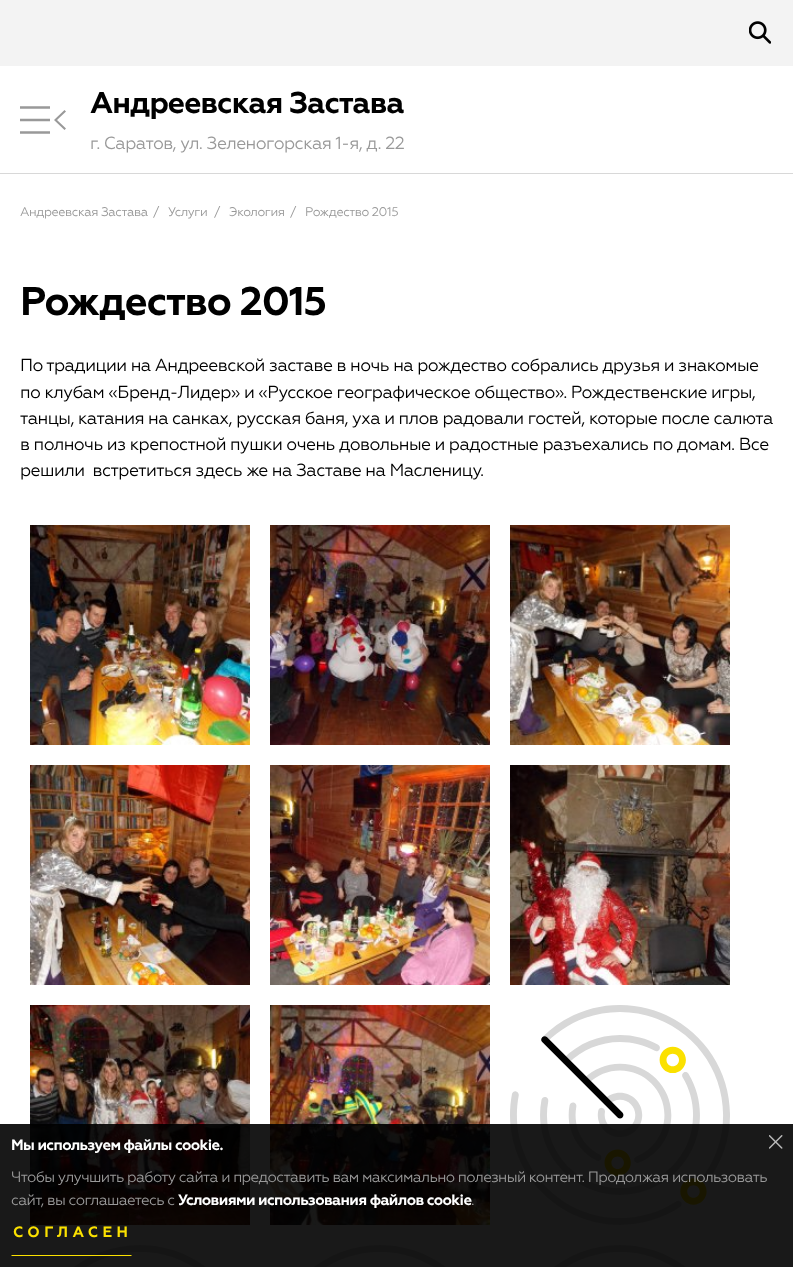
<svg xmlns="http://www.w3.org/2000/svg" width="793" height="1267">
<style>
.a{font:bold 30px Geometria;letter-spacing:-0.9px;fill:#000}
.b{font:17.5px Geometria;letter-spacing:-0.55px;fill:#999}
.c{font:12.5px Geometria;letter-spacing:-0.4px;fill:#999}
.d{font:bold 40px Geometria;letter-spacing:-1.1px;fill:#000}
.e{font:17.5px Geometria;letter-spacing:-0.55px;fill:#000}
.f{font:bold 15px Geometria;letter-spacing:-0.62px;fill:#fff}
.g{font:15px Geometria;letter-spacing:-0.62px;fill:#999}
.h{font:bold 15px Geometria;letter-spacing:4.5px;fill:#fbe100}
</style>
<rect width="100%" height="100%" fill="#fff"/>
<path fill="#f3f3f3" d="M0 0h793v66H0z"/>
<image href="1.png" x="749" y="21" width="22" height="23"/>
<path fill="#d8d8d8" d="M0 173h793v1H0z"/>
<image href="2.png" x="20" y="106" width="30" height="28"/>
<path fill="#999" d="M66 111.5l-1.5-1.5l-10.5 10l10.5 10l1.5-1.5l-9-8.5z"/>
<image href="3.png" x="30" y="525" width="220" height="220"/>
<image href="4.png" x="270" y="525" width="220" height="220"/>
<image href="5.png" x="510" y="525" width="220" height="220"/>
<image href="6.png" x="30" y="765" width="220" height="220"/>
<image href="7.png" x="270" y="765" width="220" height="220"/>
<image href="8.png" x="510" y="765" width="220" height="220"/>
<image href="9.png" x="30" y="1005" width="220" height="220"/>
<image href="10.png" x="270" y="1005" width="220" height="220"/>
<image href="11.png" x="510" y="1005" width="220" height="220"/>
<image href="12.png" x="74" y="1245" width="132" height="22"/>
<image href="12.png" x="314" y="1245" width="132" height="22"/>
<image href="12.png" x="554" y="1245" width="132" height="22"/>
<path fill="#000000e6" d="M0 1124h793v143H0z"/>
<image href="13.png" x="769" y="1135" width="14" height="14"/>
<path fill="#fbe100" d="M132 1256h-121l1-1h119z"/>
<text class="a" x="90" y="113">Андреевская Застава</text>
<text class="b" x="90" y="149">г. Саратов, ул. Зеленогорская 1-я, д. 22</text>
<text class="c" x="20" y="216">Андреевская Застава</text>
<text class="c" x="153" y="216">/</text>
<text class="c" x="168" y="216">Услуги</text>
<text class="c" x="214" y="216">/</text>
<text class="c" x="229" y="216">Экология</text>
<text class="c" x="290" y="216">/</text>
<text class="c" x="305" y="216">Рождество 2015</text>
<text class="d" x="20" y="315">Рождество 2015</text>
<text class="e" x="20" y="371">По традиции на Андреевской заставе в ночь на рождество собрались друзья и знакомые</text>
<text class="e" x="20" y="398">по клубам «Бренд-Лидер» и «Русское географическое общество». Рождественские игры,</text>
<text class="e" x="20" y="424">танцы, катания на санках, русская баня, уха и плов радовали гостей, которые после салюта</text>
<text class="e" x="20" y="450">в полночь из крепостной пушки очень довольные и радостные разъехались по домам. Все</text>
<text class="e" xml:space="preserve" x="20" y="476">решили  встретиться здесь же на Заставе на Масленицу.</text>
<text class="f" x="11" y="1150">Мы используем файлы cookie.</text>
<text class="g" x="11" y="1182">Чтобы улучшить работу сайта и предоставить вам максимально полезный контент. Продолжая использовать</text>
<text class="g" x="11" y="1205">сайт, вы соглашаетесь с</text>
<text class="f" x="178" y="1205">Условиями использования файлов cookie</text>
<text class="g" x="471" y="1205">.</text>
<text class="h" x="13" y="1237">СОГЛАСЕН</text>
</svg>
